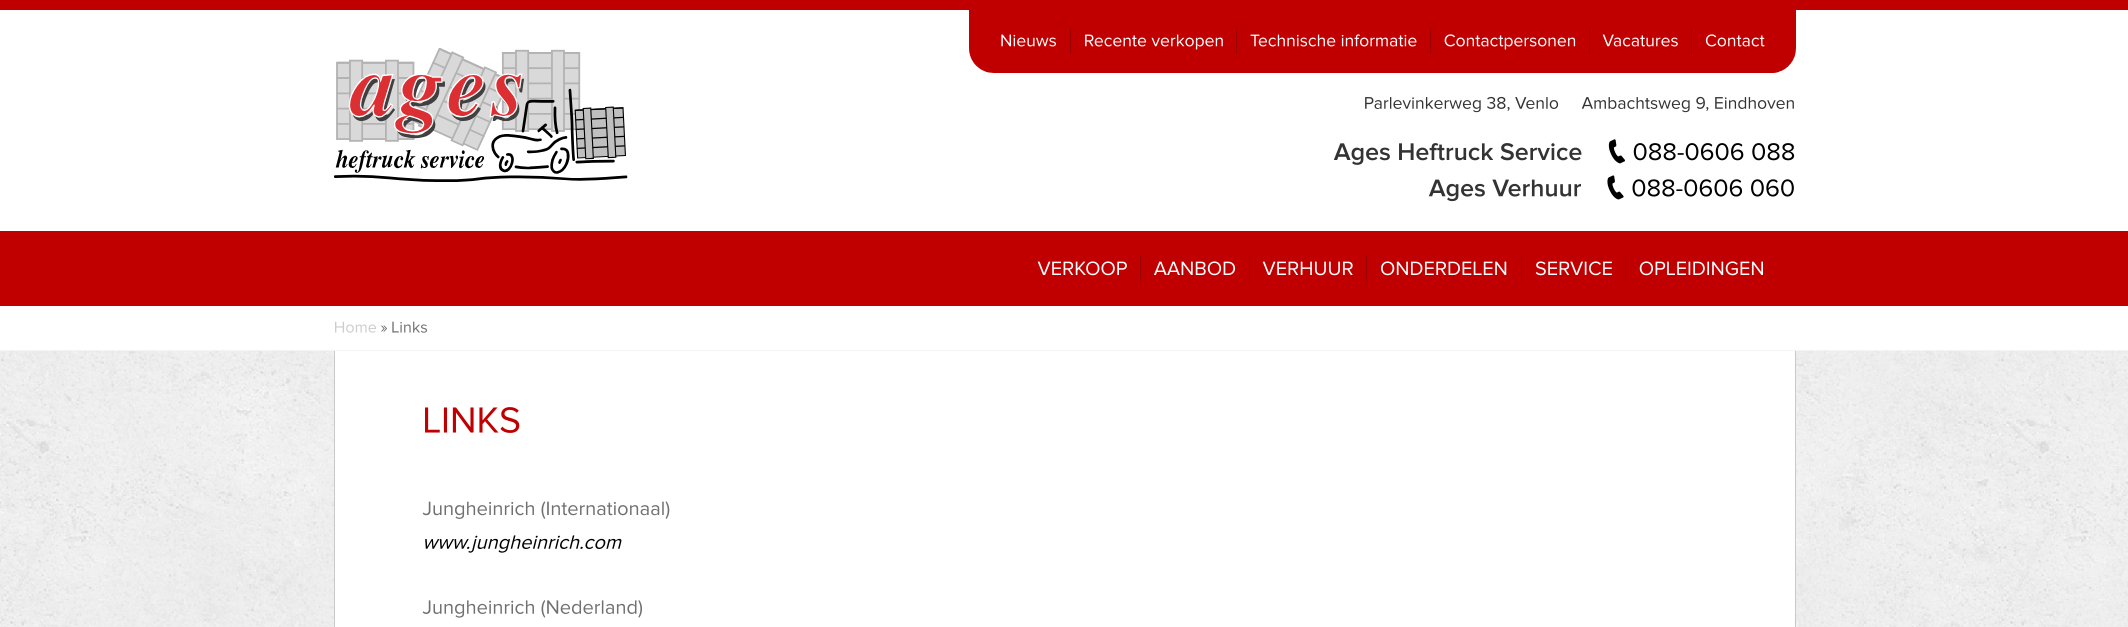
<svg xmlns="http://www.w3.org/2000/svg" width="2128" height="627">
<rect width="100%" height="100%" fill="#fff"/>
<image href="1.png" x="0" y="351" width="2128" height="276"/>
<path fill="#c00000" d="M0 0h2128v10H0z"/>
<image href="2.png" x="334" y="48" width="294" height="134"/>
<path fill="#c00000" d="M969 10h827v38c0 14-11 25-25 25h-777c-14 0-25-11-25-25z"/>
<path fill="#980203" d="M1070 29h1v25H1070z"/>
<image href="3.png" x="1001" y="34" width="55" height="13"/>
<path fill="#980203" d="M1236 29h1v25H1236z"/>
<image href="4.png" x="1085" y="34" width="138" height="16"/>
<path fill="#980203" d="M1430 29h1v25H1430z"/>
<image href="5.png" x="1250" y="34" width="167" height="13"/>
<path fill="#980203" d="M1589 29h1v25H1589z"/>
<image href="6.png" x="1444" y="34" width="132" height="16"/>
<path fill="#980203" d="M1691 29h1v25H1691z"/>
<image href="7.png" x="1602" y="34" width="76" height="13"/>
<image href="8.png" x="1705" y="34" width="60" height="13"/>
<image href="9.png" x="1365" y="96" width="429" height="17"/>
<image href="10.png" x="1334" y="143" width="248" height="22"/>
<image href="11.png" x="1608" y="139" width="17" height="25"/>
<image href="12.png" x="1633" y="143" width="162" height="18"/>
<image href="13.png" x="1428" y="179" width="153" height="23"/>
<image href="14.png" x="1607" y="175" width="17" height="25"/>
<image href="15.png" x="1632" y="179" width="162" height="18"/>
<path fill="#c00000" d="M0 231h2128v75H0z"/>
<path fill="#980203" d="M1140 256h1v25H1140z"/>
<image href="16.png" x="1037" y="261" width="90" height="15"/>
<path fill="#980203" d="M1249 256h1v25H1249z"/>
<image href="17.png" x="1154" y="261" width="82" height="15"/>
<path fill="#980203" d="M1366 256h1v25H1366z"/>
<image href="18.png" x="1262" y="261" width="91" height="15"/>
<path fill="#980203" d="M1521 256h1v25H1521z"/>
<image href="19.png" x="1381" y="261" width="126" height="15"/>
<path fill="#980203" d="M1625 256h1v25H1625z"/>
<image href="20.png" x="1535" y="261" width="77" height="15"/>
<image href="21.png" x="1639" y="261" width="124" height="15"/>
<path fill="#f4f4f4" d="M0 350h2128v1H0z"/>
<image href="22.png" x="335" y="321" width="42" height="12"/>
<image href="23.png" x="381" y="325" width="6" height="7"/>
<image href="24.png" x="392" y="321" width="35" height="12"/>
<path fill="#fff" d="M335 351h1460v276H335z"/>
<path fill="#c9c9c9" d="M1795 351h1v276H1795z"/>
<path fill="#c9c9c9" d="M334 351h1v276H334z"/>
<image href="25.png" x="425" y="407" width="95" height="26"/>
<image href="26.png" x="422" y="501" width="248" height="18"/>
<image href="27.png" x="425" y="535" width="197" height="18"/>
<image href="28.png" x="422" y="600" width="220" height="18"/>
</svg>
